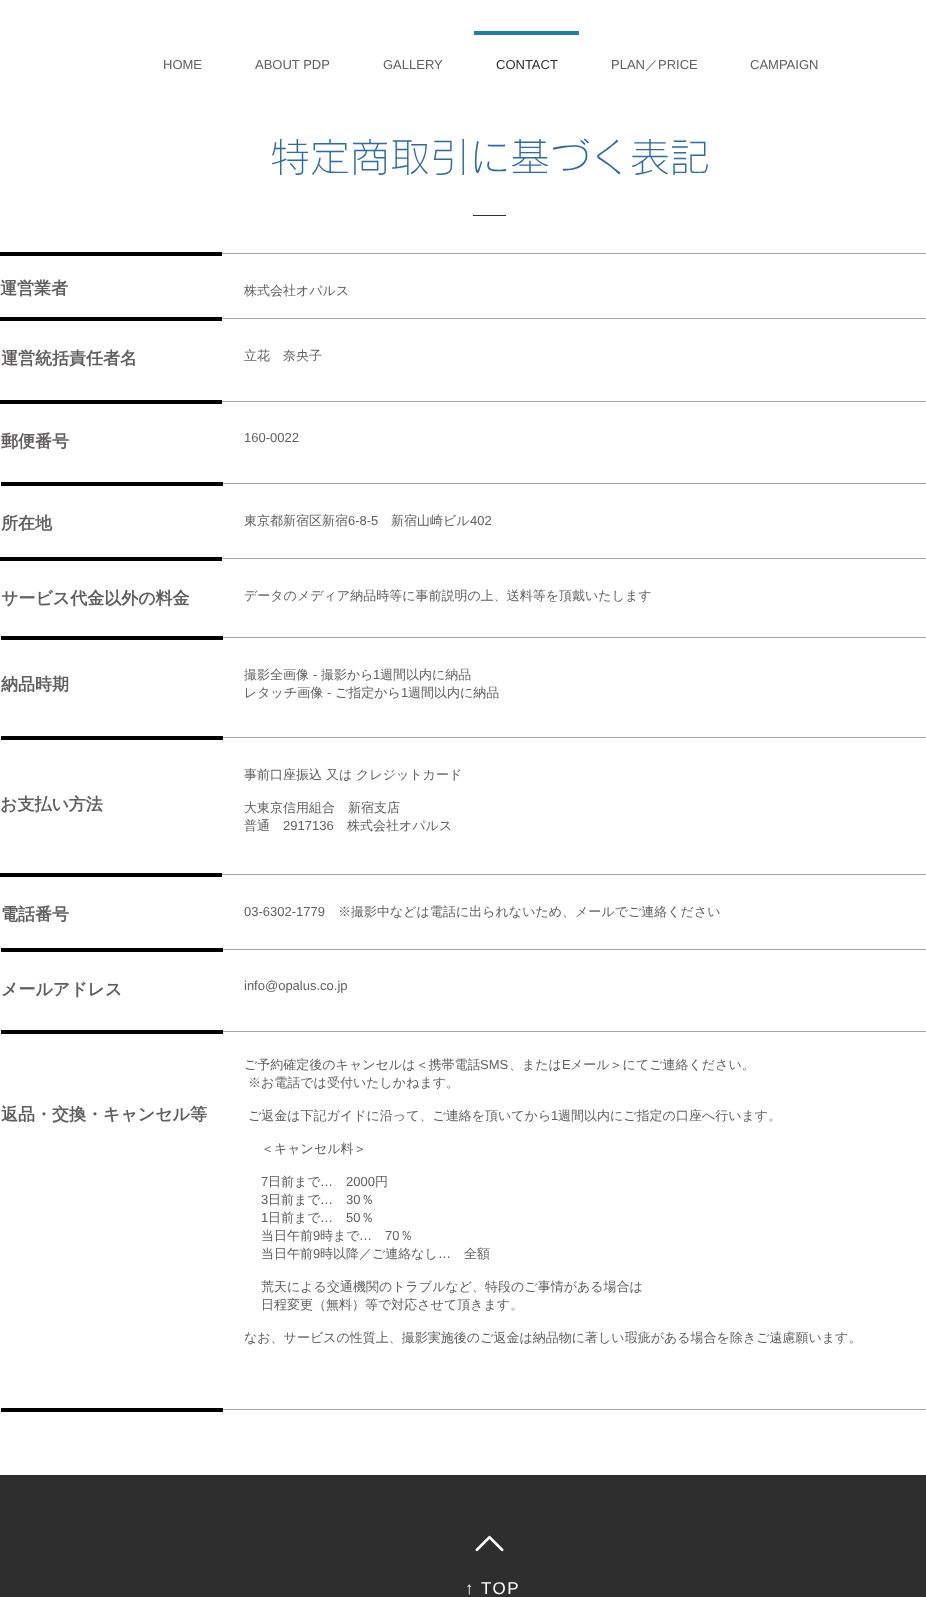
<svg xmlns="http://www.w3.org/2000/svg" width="926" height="1597">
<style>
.a{font:13px Liberation Sans;fill:#605e5e}
.b{font:13px Liberation Sans;fill:#2f2e2e}
.c{font:500 13px WenQuanYi Zen Hei;fill:#605e5e}
.d{font:300 40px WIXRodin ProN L;fill:#2b6ca3}
.e{font:bold 17px WenQuanYi Zen Hei;fill:#605e5e}
.f{font:17px Liberation Sans;letter-spacing:1.5px;fill:#fff}
</style>
<rect width="100%" height="100%" fill="#fff"/>
<path fill="#227fab" d="M474 31h105v4H474z"/>
<path fill="#2f2e2e" d="M473 215h33v1H473z"/>
<path fill="#000" d="M0 252h222v4H0z"/>
<path fill="#a3a3a3" d="M222 253h704v1H222z"/>
<path fill="#000" d="M0 317h222v4H0z"/>
<path fill="#a3a3a3" d="M222 318h704v1H222z"/>
<path fill="#000" d="M0 400h222v4H0z"/>
<path fill="#a3a3a3" d="M222 401h704v1H222z"/>
<path fill="#000" d="M1 482h222v4H1z"/>
<path fill="#a3a3a3" d="M223 483h703v1H223z"/>
<path fill="#000" d="M0 557h222v4H0z"/>
<path fill="#a3a3a3" d="M222 558h704v1H222z"/>
<path fill="#000" d="M1 636h222v4H1z"/>
<path fill="#a3a3a3" d="M223 637h703v1H223z"/>
<path fill="#000" d="M1 736h222v4H1z"/>
<path fill="#a3a3a3" d="M223 737h703v1H223z"/>
<path fill="#000" d="M0 873h222v4H0z"/>
<path fill="#a3a3a3" d="M222 874h704v1H222z"/>
<path fill="#000" d="M1 948h222v4H1z"/>
<path fill="#a3a3a3" d="M223 949h703v1H223z"/>
<path fill="#000" d="M1 1030h222v4H1z"/>
<path fill="#a3a3a3" d="M223 1031h703v1H223z"/>
<path fill="#000" d="M1 1408h222v4H1z"/>
<path fill="#a3a3a3" d="M223 1409h703v1H223z"/>
<path fill="#2f2e2e" d="M0 1475h926v122H0z"/>
<image href="1.png" x="475" y="1535" width="29" height="17"/>
<text class="a" x="163" y="69">HOME</text>
<text class="a" x="255" y="69">ABOUT PDP</text>
<text class="a" x="383" y="69">GALLERY</text>
<text class="b" x="496" y="69">CONTACT</text>
<text class="a" x="611" y="69">PLAN</text>
<text class="c" x="645" y="69">／</text>
<text class="a" x="658" y="69">PRICE</text>
<text class="a" x="750" y="69">CAMPAIGN</text>
<text class="d" x="270" y="172">特定商取引に基づく表記</text>
<text class="e" x="0" y="294">運営業者</text>
<text class="c" x="244" y="295">株式会社オパルス</text>
<text class="e" x="1" y="364">運営統括責任者名</text>
<text class="c" x="244" y="360">立花　奈央子</text>
<text class="e" x="1" y="447">郵便番号</text>
<text class="a" x="244" y="442">160-0022</text>
<text class="e" x="1" y="529">所在地</text>
<text class="c" x="244" y="525">東京都新宿区新宿</text>
<text class="a" x="348" y="525">6-8-5</text>
<text class="c" x="391" y="525">新宿山崎ビル</text>
<text class="a" x="470" y="525">402</text>
<text class="e" x="1" y="604">サービス代金以外の料金</text>
<text class="c" x="244" y="600">データのメディア納品時等に事前説明の上、送料等を頂戴いたします</text>
<text class="e" x="1" y="690">納品時期</text>
<text class="c" x="244" y="679">撮影全画像</text>
<text class="a" x="313" y="679">-</text>
<text class="c" x="321" y="679">撮影から</text>
<text class="a" x="373" y="679">1</text>
<text class="c" x="380" y="679">週間以内に納品</text>
<text class="c" x="244" y="697">レタッチ画像</text>
<text class="a" x="327" y="697">-</text>
<text class="c" x="335" y="697">ご指定から</text>
<text class="a" x="401" y="697">1</text>
<text class="c" x="408" y="697">週間以内に納品</text>
<text class="e" x="0" y="810">お支払い方法</text>
<text class="c" x="244" y="779">事前口座振込 又は クレジットカード</text>
<text class="c" x="244" y="812">大東京信用組合　新宿支店</text>
<text class="c" x="244" y="830">普通</text>
<text class="a" x="283" y="830">2917136</text>
<text class="c" x="347" y="830">株式会社オパルス</text>
<text class="e" x="1" y="920">電話番号</text>
<text class="a" x="244" y="916">03-6302-1779</text>
<text class="c" x="338" y="916">※撮影中などは電話に出られないため、メールでご連絡ください</text>
<text class="e" x="1" y="995">メールアドレス</text>
<text class="a" x="244" y="990">info@opalus.co.jp</text>
<text class="e" x="1" y="1120">返品・交換・キャンセル等</text>
<text class="c" x="244" y="1069">ご予約確定後のキャンセルは＜携帯電話</text>
<text class="a" x="480" y="1069">SMS</text>
<text class="c" x="509" y="1069">、または</text>
<text class="a" x="562" y="1069">E</text>
<text class="c" x="570" y="1069">メール＞にてご連絡ください。</text>
<text class="c" x="248" y="1087">※お電話では受付いたしかねます。</text>
<text class="c" x="248" y="1120">ご返金は下記ガイドに沿って、ご連絡を頂いてから</text>
<text class="a" x="551" y="1120">1</text>
<text class="c" x="558" y="1120">週間以内にご指定の口座へ行います。</text>
<text class="c" x="261" y="1153">＜キャンセル料＞</text>
<text class="a" x="261" y="1186">7</text>
<text class="c" x="268" y="1186">日前まで</text>
<text class="a" x="320" y="1186">…</text>
<text class="a" x="346" y="1186">2000</text>
<text class="c" x="375" y="1186">円</text>
<text class="a" x="261" y="1204">3</text>
<text class="c" x="268" y="1204">日前まで</text>
<text class="a" x="320" y="1204">…</text>
<text class="a" x="346" y="1204">30</text>
<text class="c" x="361" y="1204">％</text>
<text class="a" x="261" y="1222">1</text>
<text class="c" x="268" y="1222">日前まで</text>
<text class="a" x="320" y="1222">…</text>
<text class="a" x="346" y="1222">50</text>
<text class="c" x="361" y="1222">％</text>
<text class="c" x="261" y="1240">当日午前</text>
<text class="a" x="313" y="1240">9</text>
<text class="c" x="320" y="1240">時まで</text>
<text class="a" x="359" y="1240">…</text>
<text class="a" x="385" y="1240">70</text>
<text class="c" x="400" y="1240">％</text>
<text class="c" x="261" y="1258">当日午前</text>
<text class="a" x="313" y="1258">9</text>
<text class="c" x="320" y="1258">時以降／ご連絡なし</text>
<text class="a" x="438" y="1258">…</text>
<text class="c" x="464" y="1258">全額</text>
<text class="c" x="261" y="1291">荒天による交通機関のトラブルなど、特段のご事情がある場合は</text>
<text class="c" x="261" y="1309">日程変更（無料）等で対応させて頂きます。</text>
<text class="c" x="244" y="1342">なお、サービスの性質上、撮影実施後のご返金は納品物に著しい瑕疵がある場合を除きご遠慮願います。</text>
<text class="f" x="465" y="1594">↑ TOP</text>
</svg>
